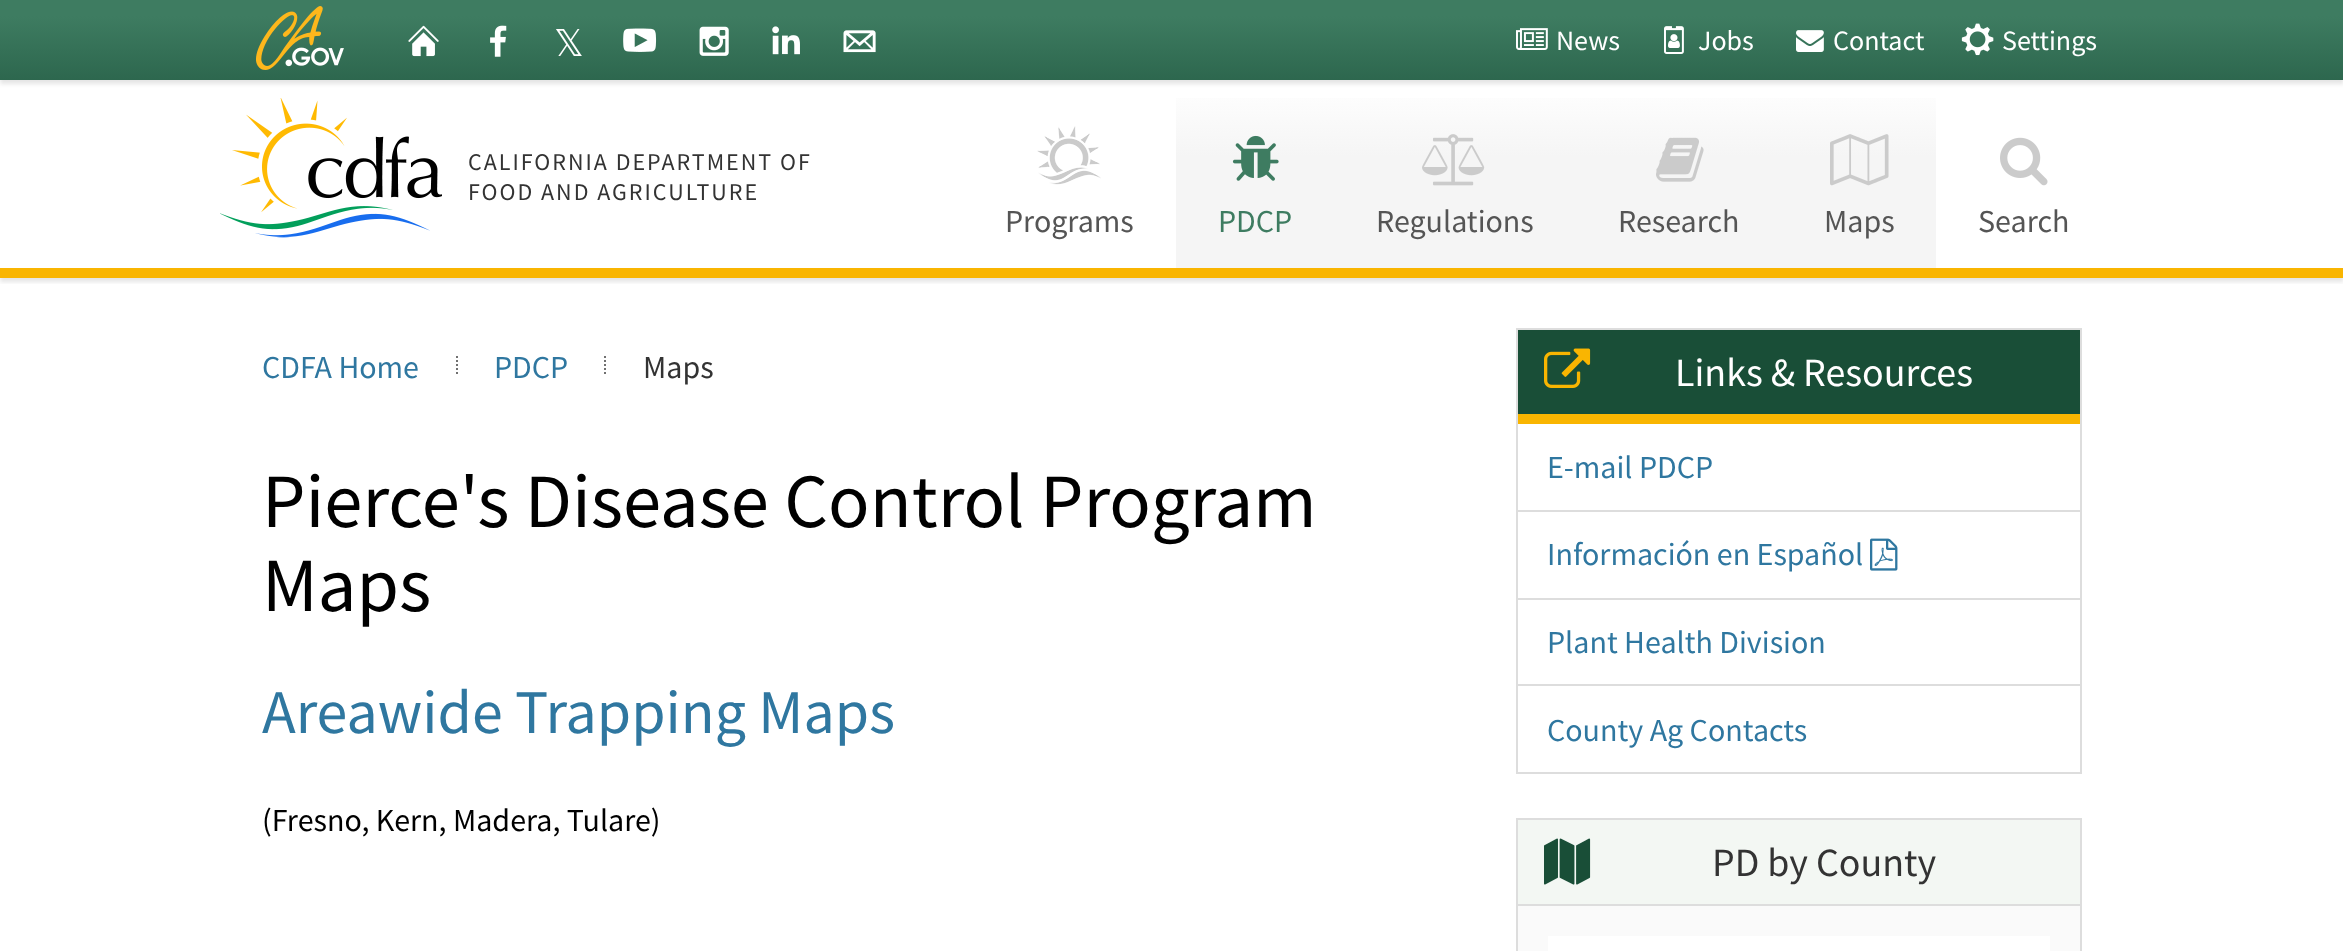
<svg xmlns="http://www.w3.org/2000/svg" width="2343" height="951">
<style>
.a{font:37px DejaVu Sans;fill:#fff}
.b{font:28px Source Sans Pro;fill:#fff}
.c{font:24px Source Sans Pro;letter-spacing:2px;fill:#333}
.d{font:32px Source Sans Pro;fill:#555}
.e{font:32px Source Sans Pro;fill:#3e7c61}
.f{font:32px Source Sans Pro;fill:#2f77a0}
.g{font:32px Source Sans Pro;fill:#333}
.h{font:76.75px Source Sans Pro;fill:#000}
.i{font:62px Source Sans Pro;fill:#2f77a0}
.j{font:32px Source Sans Pro;fill:#000}
.k{font:40px Source Sans Pro;fill:#fff}
.l{font:40px Source Sans Pro;fill:#333}
</style>
<defs>
<clipPath id="clip1"><path d="M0 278h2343v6H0z"/></clipPath>
<linearGradient id="g1" gradientUnits="userSpaceOnUse" x1="1172" y1="0" x2="1172" y2="80"><stop offset="0.2" stop-color="#3e7c61"/><stop offset="1" stop-color="#2d674e"/></linearGradient>
<linearGradient id="g2" gradientUnits="userSpaceOnUse" x1="1255" y1="82" x2="1255" y2="268"><stop offset="0" stop-color="#f5f5f5" stop-opacity="0"/><stop offset="0.4" stop-color="#f5f5f5"/></linearGradient>
<linearGradient id="g3" gradientUnits="userSpaceOnUse" x1="1455" y1="82" x2="1455" y2="268"><stop offset="0" stop-color="#f5f5f5" stop-opacity="0"/><stop offset="0.4" stop-color="#f5f5f5"/></linearGradient>
<linearGradient id="g4" gradientUnits="userSpaceOnUse" x1="1679" y1="82" x2="1679" y2="268"><stop offset="0" stop-color="#f5f5f5" stop-opacity="0"/><stop offset="0.4" stop-color="#f5f5f5"/></linearGradient>
<linearGradient id="g5" gradientUnits="userSpaceOnUse" x1="1859" y1="82" x2="1859" y2="268"><stop offset="0" stop-color="#f5f5f5" stop-opacity="0"/><stop offset="0.4" stop-color="#f5f5f5"/></linearGradient>
</defs>
<rect width="100%" height="100%" fill="#fff"/>
<g clip-path="url(#clip1)">
<path fill="#0000001a" filter="blur(2px)" d="M0 4h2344v278H0z"/>
</g>
<path fill="#0000001a" filter="blur(2px)" d="M0 4h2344v80H0z"/>
<path fill="url(#g1)" d="M0 0h2343v80H0z"/>
<image href="1.png" x="256" y="6" width="88" height="64"/>
<image href="2.png" x="408" y="25" width="31" height="32"/>
<image href="3.png" x="490" y="25" width="17" height="32"/>
<image href="4.png" x="623" y="28" width="34" height="24"/>
<image href="5.png" x="699" y="26" width="30" height="30"/>
<image href="6.png" x="772" y="26" width="28" height="29"/>
<image href="7.png" x="843" y="30" width="33" height="23"/>
<image href="8.png" x="1516" y="28" width="32" height="22"/>
<image href="9.png" x="1664" y="26" width="20" height="28"/>
<image href="10.png" x="1796" y="30" width="28" height="22"/>
<image href="11.png" x="1961" y="23" width="33" height="33"/>
<image href="12.png" x="220" y="98" width="222" height="140"/>
<path fill="#f9b501" d="M0 268h2343v10H0z"/>
<image href="13.png" x="1037" y="126" width="64" height="59"/>
<path fill="url(#g2)" d="M1176 98h158v170H1176z"/>
<image href="14.png" x="1232" y="135" width="47" height="46"/>
<path fill="url(#g3)" d="M1334 98h242v170H1334z"/>
<image href="15.png" x="1422" y="134" width="63" height="52"/>
<path fill="url(#g4)" d="M1576 98h206v170H1576z"/>
<image href="16.png" x="1656" y="137" width="48" height="45"/>
<path fill="url(#g5)" d="M1782 98h154v170H1782z"/>
<image href="17.png" x="1830" y="134" width="59" height="52"/>
<image href="18.png" x="2000" y="137" width="48" height="49"/>
<path fill="none" stroke="#707070" stroke-width="2" stroke-dasharray="2 2" d="M457 356v20"/>
<path fill="none" stroke="#707070" stroke-width="2" stroke-dasharray="2 2" d="M605 356v20"/>
<path fill="none" stroke="#ddd" stroke-width="2" d="M1517 329h564v444H1517z"/>
<path fill="#194e37" d="M1518 330h562v84H1518z"/>
<path fill="#f9b501" d="M1518 414h562v10H1518z"/>
<image href="19.png" x="1544" y="348" width="47" height="40"/>
<path fill="#ddd" d="M1518 510h562v2H1518z"/>
<path fill="#ddd" d="M1518 598h562v2H1518z"/>
<image href="20.png" x="1870" y="538" width="28" height="33"/>
<path fill="#ddd" d="M1518 684h562v2H1518z"/>
<path fill="none" stroke="#ddd" stroke-width="2" d="M1517 819h564v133H1517z"/>
<path fill="#f3f7f3" d="M1518 820h562v84H1518z"/>
<path fill="#ddd" d="M1518 904h562v2H1518z"/>
<image href="21.png" x="1544" y="838" width="47" height="47"/>
<path fill="#fafafa" d="M1518 906h562v45H1518z"/>
<path fill="#fff" d="M1548 936h502v15H1548z"/>
<text class="a" x="554" y="56">𝕏</text>
<text class="b" x="1556" y="50">News</text>
<text class="b" x="1698" y="50">Jobs</text>
<text class="b" x="1833" y="50">Contact</text>
<text class="b" x="2002" y="50">Settings</text>
<text class="c" x="468" y="170">CALIFORNIA DEPARTMENT OF</text>
<text class="c" x="468" y="200">FOOD AND AGRICULTURE</text>
<text class="d" x="1005" y="232">Programs</text>
<text class="e" x="1218" y="232">PDCP</text>
<text class="d" x="1376" y="232">Regulations</text>
<text class="d" x="1618" y="232">Research</text>
<text class="d" x="1824" y="232">Maps</text>
<text class="d" x="1978" y="232">Search</text>
<text class="f" x="262" y="378">CDFA Home</text>
<text class="f" x="494" y="378">PDCP</text>
<text class="g" x="643" y="378">Maps</text>
<text class="h" x="262" y="527">Pierce's Disease Control Program</text>
<text class="h" x="262" y="611">Maps</text>
<text class="i" x="262" y="733">Areawide Trapping Maps</text>
<text class="j" x="262" y="831">(Fresno, Kern, Madera, Tulare)</text>
<text class="k" x="1675" y="386">Links &amp; Resources</text>
<text class="f" x="1547" y="478">E-mail PDCP</text>
<text class="f" x="1547" y="565">Información en Español</text>
<text class="f" x="1547" y="653">Plant Health Division</text>
<text class="f" x="1547" y="741">County Ag Contacts</text>
<text class="l" x="1712" y="876">PD by County</text>
</svg>
